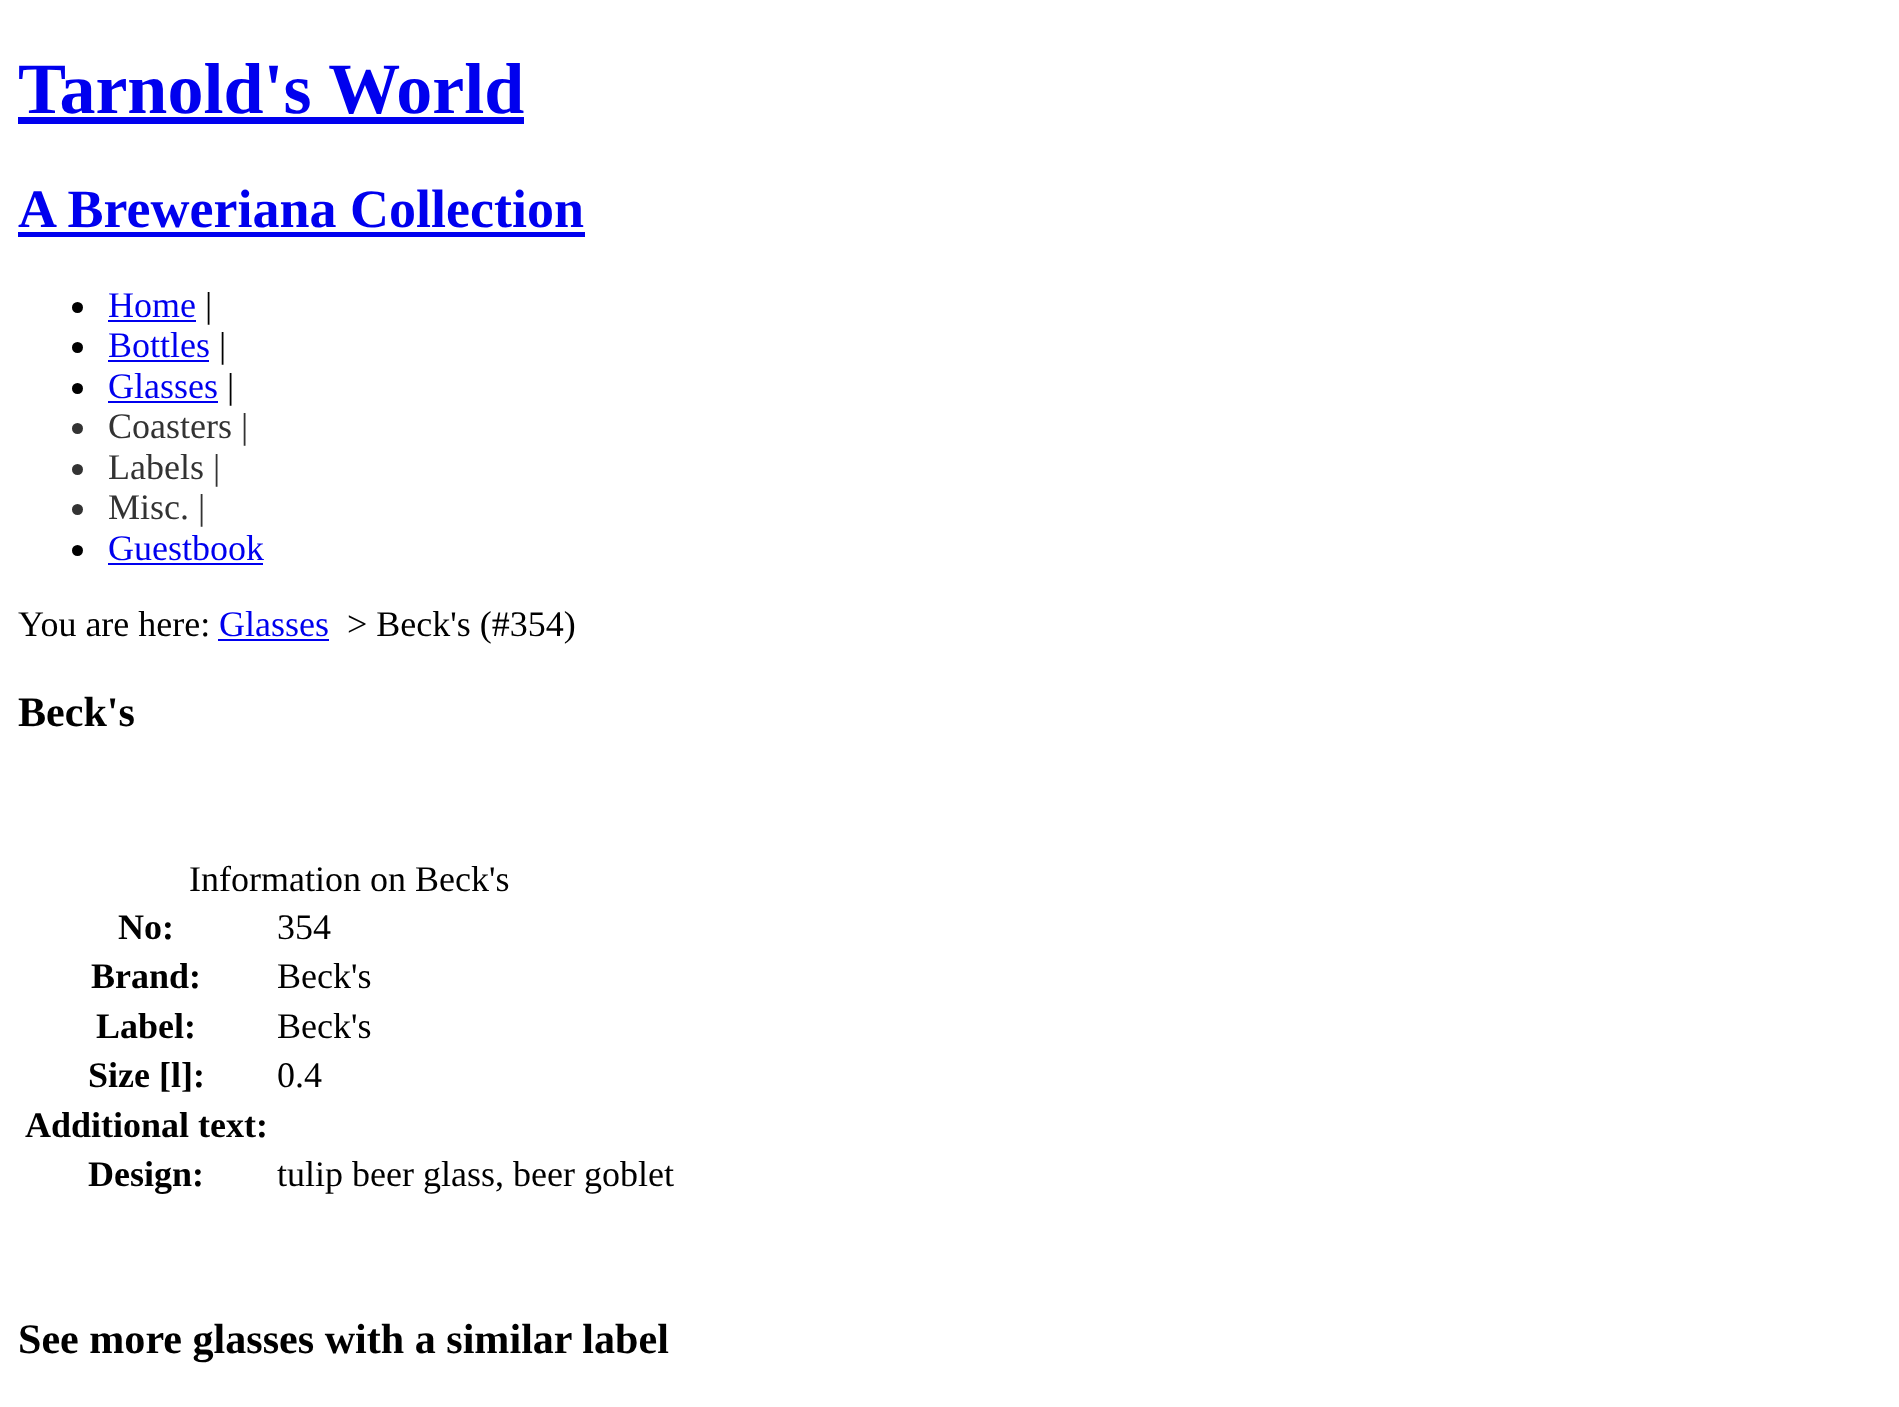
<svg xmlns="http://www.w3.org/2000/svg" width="1899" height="1407">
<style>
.a{font:bold 72px Liberation Serif;fill:#00e}
.b{font:bold 54px Liberation Serif;fill:#00e}
.c{font:36px Liberation Serif;fill:#00e}
.d{font:36px Liberation Serif;fill:#000}
.e{font:36px Liberation Serif;fill:#333}
.f{font:bold 42.1px Liberation Serif;fill:#000}
.g{font:bold 36px Liberation Serif;fill:#000}
</style>
<rect width="100%" height="100%" fill="#fff"/>
<path fill="#00e" d="M18 117h506v7H18z"/>
<path fill="#00e" d="M18 232h567v5H18z"/>
<circle fill="#000" cx="77.5" cy="307.5" r="5.5"/>
<path fill="#00e" d="M108 320h88v2H108z"/>
<circle fill="#000" cx="77.5" cy="347.5" r="5.5"/>
<path fill="#00e" d="M108 360h101v2H108z"/>
<circle fill="#000" cx="77.5" cy="388.5" r="5.5"/>
<path fill="#00e" d="M108 401h110v2H108z"/>
<circle fill="#333" cx="77.5" cy="428.5" r="5.5"/>
<circle fill="#333" cx="77.5" cy="469.5" r="5.5"/>
<circle fill="#333" cx="77.5" cy="509.5" r="5.5"/>
<circle fill="#000" cx="77.5" cy="550.5" r="5.5"/>
<path fill="#00e" d="M108 563h155v2H108z"/>
<path fill="#00e" d="M218 639h111v2H218z"/>
<text class="a" x="18" y="113">Tarnold's World</text>
<text class="b" x="18" y="227">A Breweriana Collection</text>
<text class="c" x="108" y="317">Home</text>
<text class="d" x="205" y="317">|</text>
<text class="c" x="108" y="357">Bottles</text>
<text class="d" x="219" y="357">|</text>
<text class="c" x="108" y="398">Glasses</text>
<text class="d" x="227" y="398">|</text>
<text class="e" x="108" y="438">Coasters |</text>
<text class="e" x="108" y="479">Labels |</text>
<text class="e" x="108" y="519">Misc. |</text>
<text class="c" x="108" y="560">Guestbook</text>
<text class="d" x="18" y="636">You are here:</text>
<text class="c" x="219" y="636">Glasses</text>
<text class="d" x="347" y="636">&gt; Beck's (#354)</text>
<text class="f" x="18" y="726">Beck's</text>
<text class="d" x="189" y="891">Information on Beck's</text>
<text class="g" x="118" y="939">No:</text>
<text class="d" x="277" y="939">354</text>
<text class="g" x="91" y="988">Brand:</text>
<text class="d" x="277" y="988">Beck's</text>
<text class="g" x="96" y="1038">Label:</text>
<text class="d" x="277" y="1038">Beck's</text>
<text class="g" x="88" y="1087">Size [l]:</text>
<text class="d" x="277" y="1087">0.4</text>
<text class="g" x="25" y="1137">Additional text:</text>
<text class="g" x="88" y="1186">Design:</text>
<text class="d" x="277" y="1186">tulip beer glass, beer goblet</text>
<text class="f" x="18" y="1353">See more glasses with a similar label</text>
</svg>
